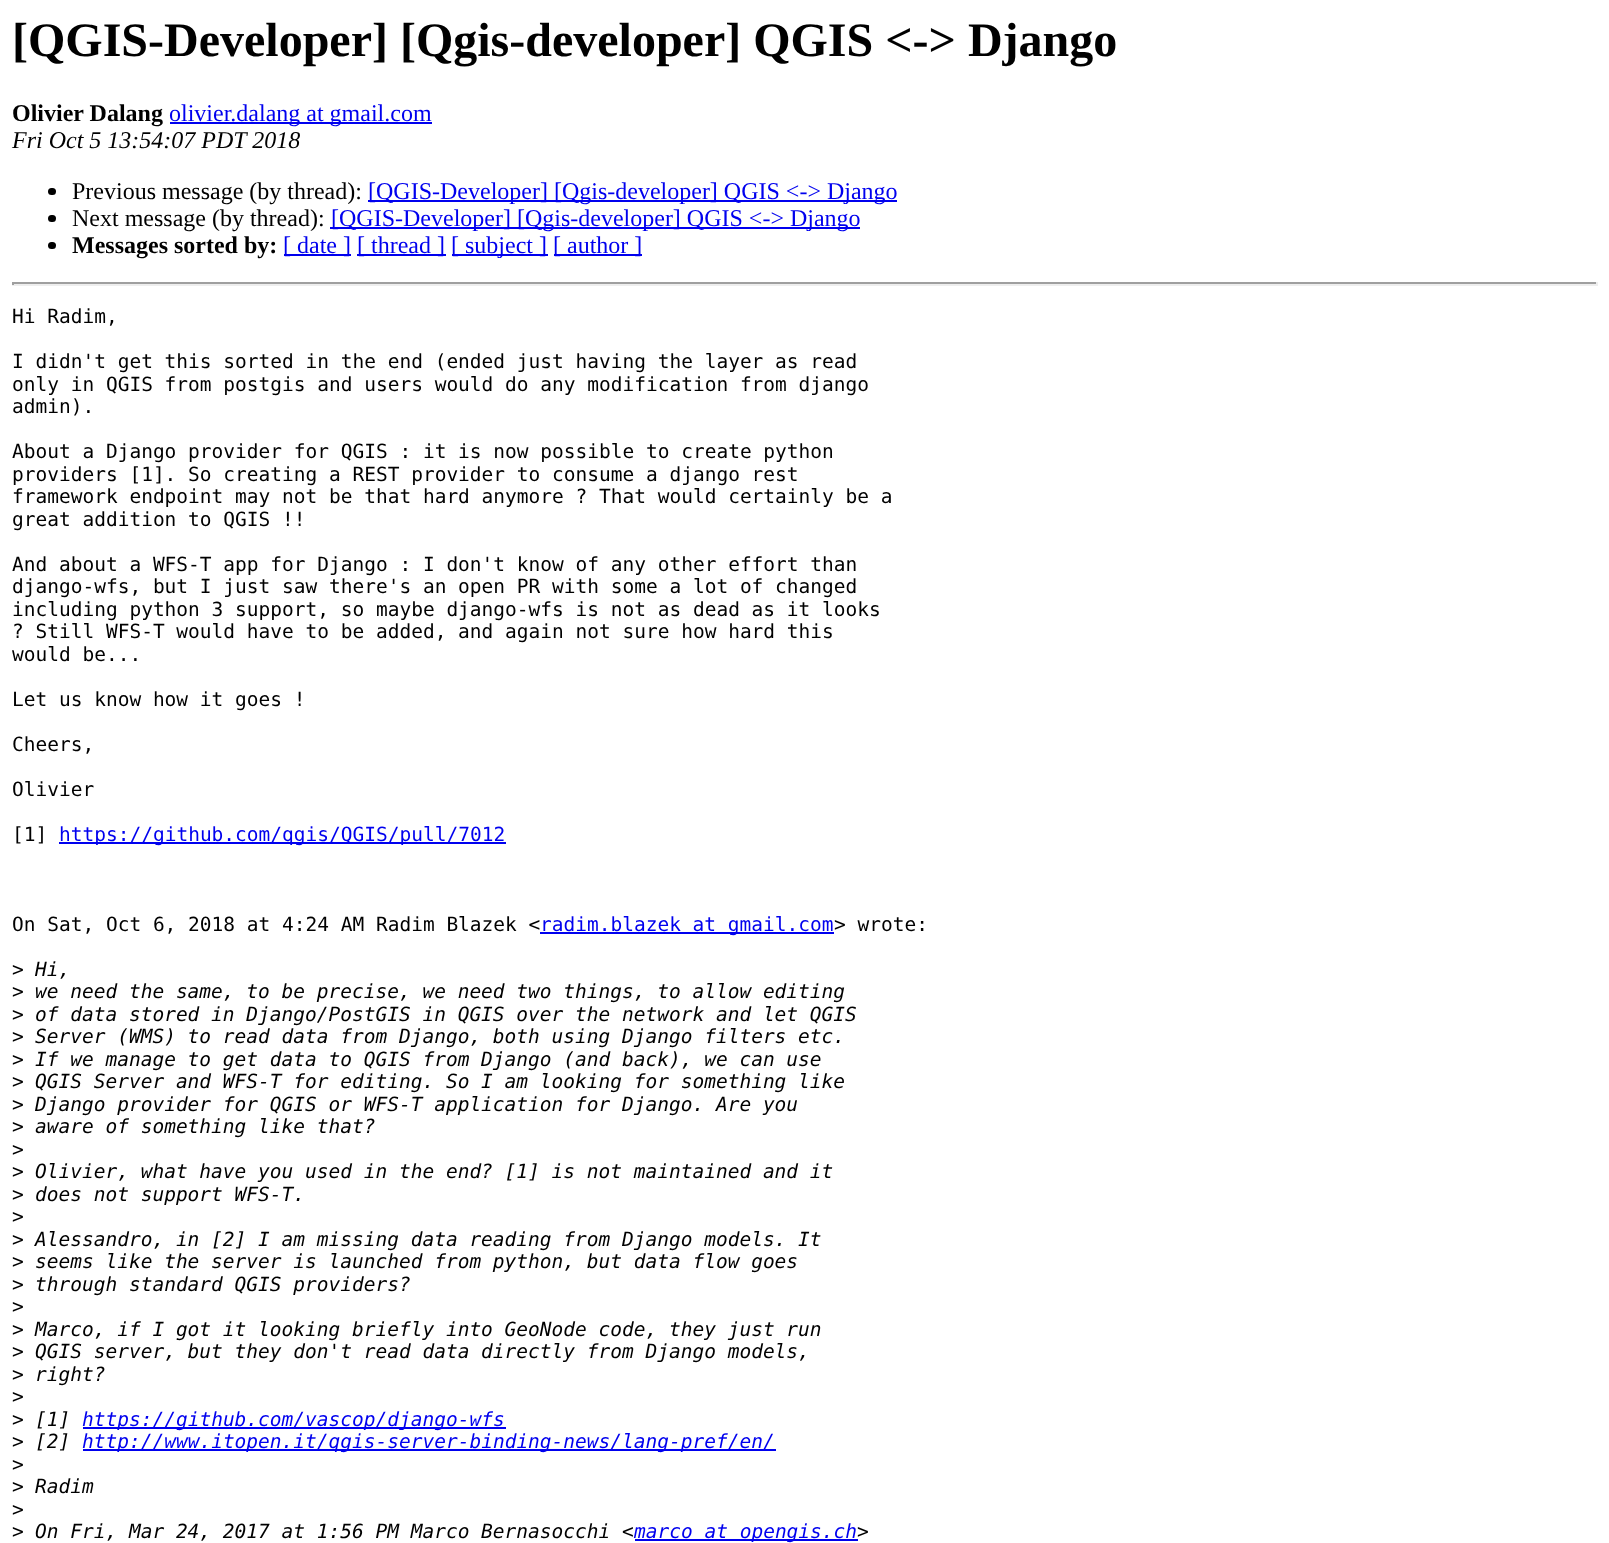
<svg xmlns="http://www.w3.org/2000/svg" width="1609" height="1543">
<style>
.a{font:bold 48px Liberation Serif;fill:#000}
.b{font:bold 24px Liberation Serif;fill:#000}
.c{font:24px Liberation Serif;fill:#00e}
.d{font:italic 24px Liberation Serif;fill:#000}
.e{font:24px Liberation Serif;fill:#000}
.f{font:19.5px DejaVu Sans Mono;fill:#000}
.g{font:19.5px DejaVu Sans Mono;fill:#00e}
.h{font:italic 19.5px DejaVu Sans Mono;fill:#000}
.i{font:italic 19.5px DejaVu Sans Mono;fill:#00e}
</style>
<rect width="100%" height="100%" fill="#fff"/>
<path fill="#00e" d="M170 122h262v2H170z"/>
<rect fill="#000" x="48" y="188" width="8" height="7" rx="3.5"/>
<path fill="#00e" d="M368 200h529v2H368z"/>
<rect fill="#000" x="48" y="215" width="8" height="7" rx="3.5"/>
<path fill="#00e" d="M330 227h530v2H330z"/>
<rect fill="#000" x="48" y="242" width="8" height="7" rx="3.5"/>
<path fill="#00e" d="M284 254h67v2H284z"/>
<path fill="#00e" d="M357 254h89v2H357z"/>
<path fill="#00e" d="M452 254h96v2H452z"/>
<path fill="#00e" d="M554 254h88v2H554z"/>
<path fill="#9f9f9f" d="M12 282h1586v2H12z"/>
<path fill="#eee" d="M1596 282h2v3H1596z"/>
<path fill="#eee" d="M12 284h1586v2H12z"/>
<path fill="#9f9f9f" d="M12 282h2v3H12z"/>
<path fill="#00e" d="M59 842h447v2H59z"/>
<path fill="#00e" d="M540 932h294v2H540z"/>
<path fill="#00e" d="M83 1427h423v2H83z"/>
<path fill="#00e" d="M83 1449h693v2H83z"/>
<path fill="#00e" d="M635 1539h223v2H635z"/>
<text class="a" x="12" y="56">[QGIS-Developer] [Qgis-developer] QGIS &lt;-&gt; Django</text>
<text class="b" x="12" y="121">Olivier Dalang</text>
<text class="c" x="169" y="121">olivier.dalang at gmail.com</text>
<text class="d" x="12" y="148">Fri Oct 5 13:54:07 PDT 2018</text>
<text class="e" x="72" y="199">Previous message (by thread):</text>
<text class="c" x="368" y="199">[QGIS-Developer] [Qgis-developer] QGIS &lt;-&gt; Django</text>
<text class="e" x="72" y="226">Next message (by thread):</text>
<text class="c" x="331" y="226">[QGIS-Developer] [Qgis-developer] QGIS &lt;-&gt; Django</text>
<text class="b" x="72" y="253">Messages sorted by:</text>
<text class="c" x="283" y="253">[ date ]</text>
<text class="c" x="357" y="253">[ thread ]</text>
<text class="c" x="451" y="253">[ subject ]</text>
<text class="c" x="553" y="253">[ author ]</text>
<text class="f" x="12" y="323">Hi Radim,</text>
<text class="f" x="12" y="368">I didn't get this sorted in the end (ended just having the layer as read</text>
<text class="f" x="12" y="391">only in QGIS from postgis and users would do any modification from django</text>
<text class="f" x="12" y="413">admin).</text>
<text class="f" x="12" y="458">About a Django provider for QGIS : it is now possible to create python</text>
<text class="f" x="12" y="481">providers [1]. So creating a REST provider to consume a django rest</text>
<text class="f" x="12" y="503">framework endpoint may not be that hard anymore ? That would certainly be a</text>
<text class="f" x="12" y="526">great addition to QGIS !!</text>
<text class="f" x="12" y="571">And about a WFS-T app for Django : I don't know of any other effort than</text>
<text class="f" x="12" y="593">django-wfs, but I just saw there's an open PR with some a lot of changed</text>
<text class="f" x="12" y="616">including python 3 support, so maybe django-wfs is not as dead as it looks</text>
<text class="f" x="12" y="638">? Still WFS-T would have to be added, and again not sure how hard this</text>
<text class="f" x="12" y="661">would be...</text>
<text class="f" x="12" y="706">Let us know how it goes !</text>
<text class="f" x="12" y="751">Cheers,</text>
<text class="f" x="12" y="796">Olivier</text>
<text class="f" x="12" y="841">[1]</text>
<text class="g" x="59" y="841">https://github.com/qgis/QGIS/pull/7012</text>
<text class="f" x="12" y="931">On Sat, Oct 6, 2018 at 4:24 AM Radim Blazek &lt;</text>
<text class="g" x="540" y="931">radim.blazek at gmail.com</text>
<text class="f" x="834" y="931">&gt; wrote:</text>
<text class="f" x="12" y="976">&gt;</text>
<text class="h" x="35" y="976">Hi,</text>
<text class="f" x="12" y="998">&gt;</text>
<text class="h" x="35" y="998">we need the same, to be precise, we need two things, to allow editing</text>
<text class="f" x="12" y="1021">&gt;</text>
<text class="h" x="35" y="1021">of data stored in Django/PostGIS in QGIS over the network and let QGIS</text>
<text class="f" x="12" y="1043">&gt;</text>
<text class="h" x="35" y="1043">Server (WMS) to read data from Django, both using Django filters etc.</text>
<text class="f" x="12" y="1066">&gt;</text>
<text class="h" x="35" y="1066">If we manage to get data to QGIS from Django (and back), we can use</text>
<text class="f" x="12" y="1088">&gt;</text>
<text class="h" x="35" y="1088">QGIS Server and WFS-T for editing. So I am looking for something like</text>
<text class="f" x="12" y="1111">&gt;</text>
<text class="h" x="35" y="1111">Django provider for QGIS or WFS-T application for Django. Are you</text>
<text class="f" x="12" y="1133">&gt;</text>
<text class="h" x="35" y="1133">aware of something like that?</text>
<text class="f" x="12" y="1156">&gt;</text>
<text class="f" x="12" y="1178">&gt;</text>
<text class="h" x="35" y="1178">Olivier, what have you used in the end? [1] is not maintained and it</text>
<text class="f" x="12" y="1201">&gt;</text>
<text class="h" x="35" y="1201">does not support WFS-T.</text>
<text class="f" x="12" y="1223">&gt;</text>
<text class="f" x="12" y="1246">&gt;</text>
<text class="h" x="35" y="1246">Alessandro, in [2] I am missing data reading from Django models. It</text>
<text class="f" x="12" y="1268">&gt;</text>
<text class="h" x="35" y="1268">seems like the server is launched from python, but data flow goes</text>
<text class="f" x="12" y="1291">&gt;</text>
<text class="h" x="35" y="1291">through standard QGIS providers?</text>
<text class="f" x="12" y="1313">&gt;</text>
<text class="f" x="12" y="1336">&gt;</text>
<text class="h" x="35" y="1336">Marco, if I got it looking briefly into GeoNode code, they just run</text>
<text class="f" x="12" y="1358">&gt;</text>
<text class="h" x="35" y="1358">QGIS server, but they don't read data directly from Django models,</text>
<text class="f" x="12" y="1381">&gt;</text>
<text class="h" x="35" y="1381">right?</text>
<text class="f" x="12" y="1403">&gt;</text>
<text class="f" x="12" y="1426">&gt;</text>
<text class="h" x="35" y="1426">[1]</text>
<text class="i" x="82" y="1426">https://github.com/vascop/django-wfs</text>
<text class="f" x="12" y="1448">&gt;</text>
<text class="h" x="35" y="1448">[2]</text>
<text class="i" x="82" y="1448">http://www.itopen.it/qgis-server-binding-news/lang-pref/en/</text>
<text class="f" x="12" y="1471">&gt;</text>
<text class="f" x="12" y="1493">&gt;</text>
<text class="h" x="35" y="1493">Radim</text>
<text class="f" x="12" y="1516">&gt;</text>
<text class="f" x="12" y="1538">&gt;</text>
<text class="h" x="35" y="1538">On Fri, Mar 24, 2017 at 1:56 PM Marco Bernasocchi &lt;</text>
<text class="i" x="634" y="1538">marco at opengis.ch</text>
<text class="h" x="857" y="1538">&gt;</text>
</svg>
